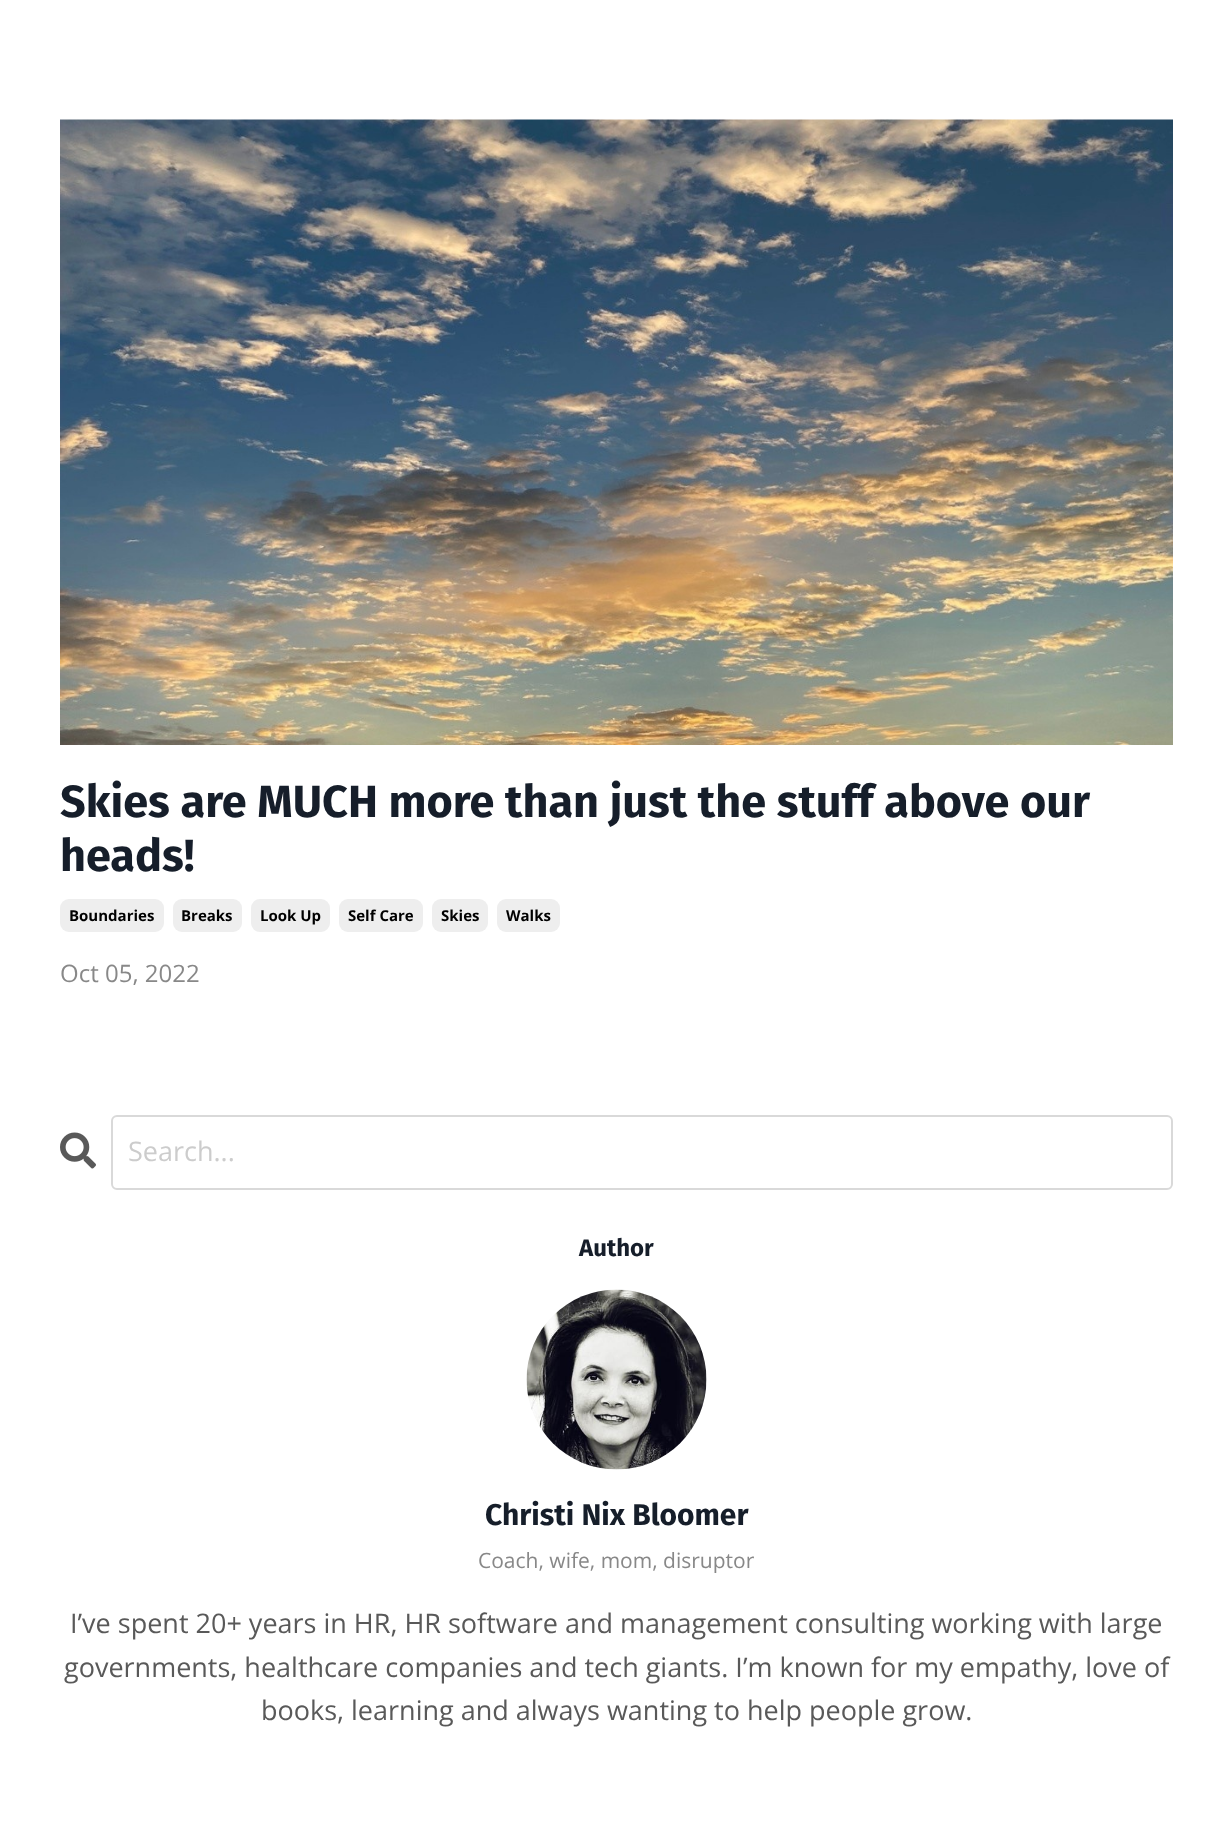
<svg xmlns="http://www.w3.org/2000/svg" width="1232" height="1829">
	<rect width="100%" height="100%" fill="#FFFFFF" />
	<image x="60" y="119" width="1113" height="626" href="assets/img1.png" />
	<g font-family="Fira Sans" font-size="45" font-weight="700" fill="#161E2A">
		<text x="60" y="817">Skies are MUCH more than just the stuff above our</text>
		<text x="60" y="871">heads!</text>
	</g>
	<rect x="60" y="899" width="104" height="33" rx="9" fill="#EEEEEE" />
	<text x="69" y="921" font-family="Open Sans" font-size="15" font-weight="700" fill="#000000">Boundaries</text>
	<rect x="173" y="899" width="69" height="33" rx="9" fill="#EEEEEE" />
	<text x="181" y="921" font-family="Open Sans" font-size="15" font-weight="700" fill="#000000">Breaks</text>
	<rect x="251" y="899" width="79" height="33" rx="9" fill="#EEEEEE" />
	<text x="260" y="921" font-family="Open Sans" font-size="15" font-weight="700" fill="#000000">Look Up</text>
	<rect x="339" y="899" width="84" height="33" rx="9" fill="#EEEEEE" />
	<text x="348" y="921" font-family="Open Sans" font-size="15" font-weight="700" fill="#000000">Self Care</text>
	<rect x="432" y="899" width="56" height="33" rx="9" fill="#EEEEEE" />
	<text x="441" y="921" font-family="Open Sans" font-size="15" font-weight="700" fill="#000000">Skies</text>
	<rect x="497" y="899" width="63" height="33" rx="9" fill="#EEEEEE" />
	<text x="506" y="921" font-family="Open Sans" font-size="15" font-weight="700" fill="#000000">Walks</text>
	<text x="60" y="982" font-family="Open Sans" font-size="24" fill="#888888">Oct 05, 2022</text>
	<image x="60" y="1132" width="36" height="37" href="assets/img2.png" />
	<rect x="112" y="1116" width="1060" height="73" rx="5" fill="none" stroke="#D9D9D9" stroke-width="2" />
	<text x="128" y="1161" font-family="Open Sans" font-size="27" fill="#CCCCCC">Search...</text>
	<text x="579" y="1256" font-family="Fira Sans" font-size="24" font-weight="700" fill="#161E2A">Author</text>
	<image x="526" y="1289" width="181" height="181" href="assets/img3.png" />
	<text x="485" y="1525" font-family="Fira Sans" font-size="30" font-weight="700" fill="#161E2A">Christi Nix Bloomer</text>
	<text x="478" y="1568" font-family="Open Sans" font-size="21" fill="#888888">Coach, wife, mom, disruptor</text>
	<g font-family="Open Sans" font-size="27" fill="#595959">
		<text x="70" y="1633">I’ve spent 20+ years in HR, HR software and management consulting working with large</text>
		<text x="64" y="1677">governments, healthcare companies and tech giants. I’m known for my empathy, love of</text>
		<text x="261" y="1720">books, learning and always wanting to help people grow.</text>
	</g>
</svg>
